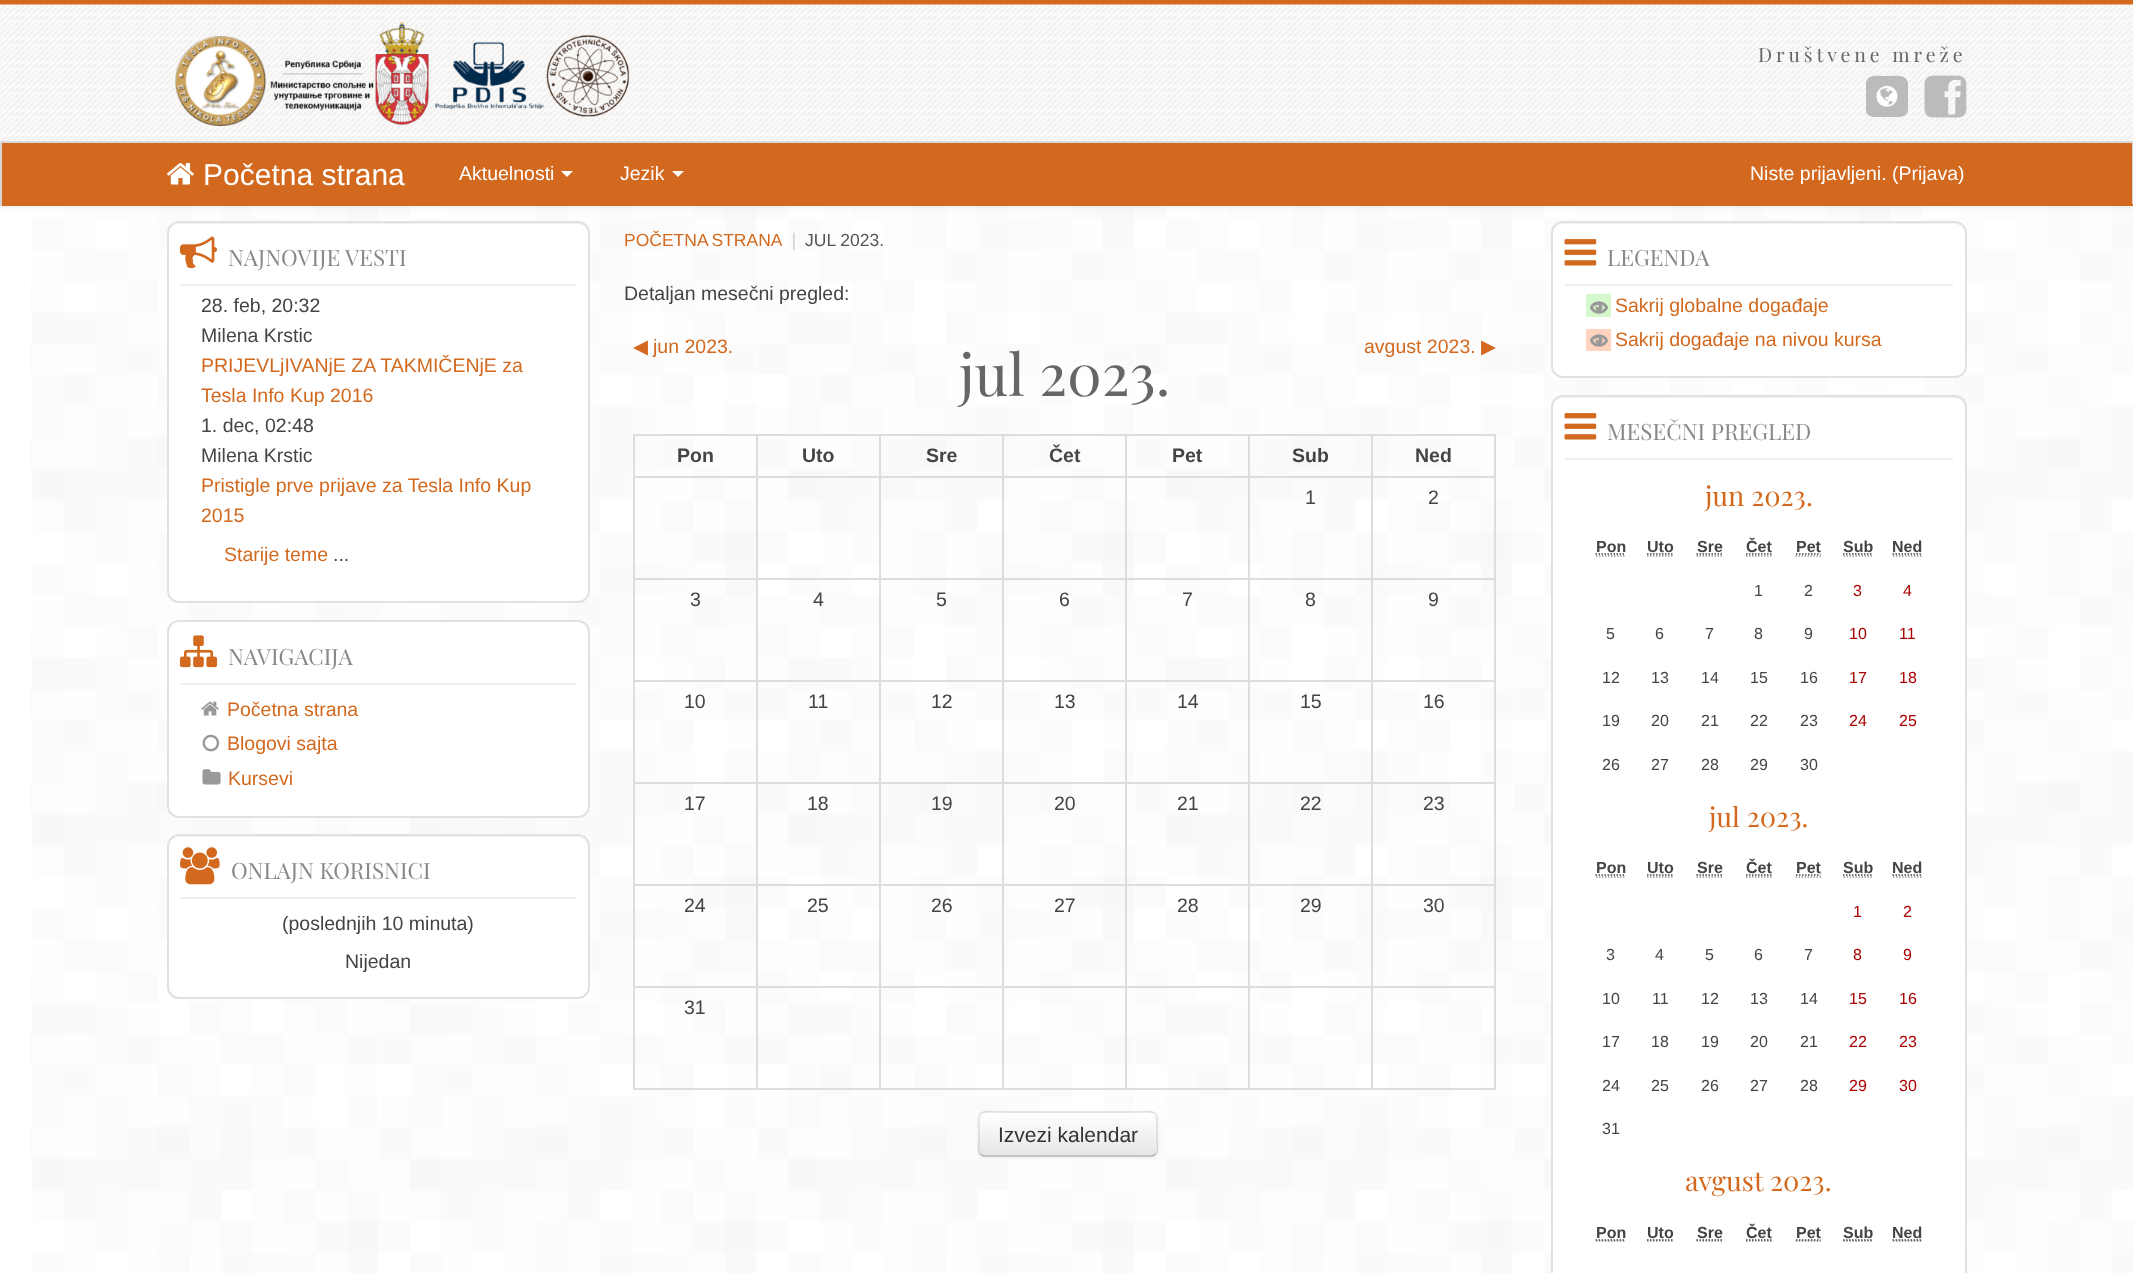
<svg xmlns="http://www.w3.org/2000/svg" width="2133" height="1273">
	<defs>
		<clipPath id="clip1"><rect x="978" y="1112" width="180" height="45" rx="6" /></clipPath>
		<linearGradient id="g1" gradientUnits="userSpaceOnUse" x1="1068" y1="1113" x2="1068" y2="1155"><stop offset="0" stop-color="#FFFFFF" /><stop offset="1" stop-color="#E6E6E6" /></linearGradient>
	</defs>
	<rect width="100%" height="100%" fill="#FFFFFF" />
	<image x="31" y="206" width="2102" height="1067" href="assets/img1.png" />
	<rect x="0" y="0" width="2133" height="5" fill="#D2691E" />
	<image x="0" y="4" width="2133" height="137" href="assets/img2.png" />
	<rect x="0" y="141" width="2133" height="2" fill="#DDDDDD" />
	<image x="175" y="22" width="455" height="104" href="assets/img3.png" />
	<text x="1758" y="62" font-family="Playfair Display" font-size="19.5" letter-spacing="3.9" fill="#666666">Društvene mreže</text>
	<path d="M1908 84V111C1906 117 1901 117 1896 117H1878C1873 117 1867 117 1866 111V84C1866 73 1880 76 1887 76C1893 76 1908 73 1908 84Z" fill="#BBBBBB" />
	<image x="1876" y="85" width="22" height="22" href="assets/img4.png" />
	<image x="1924" y="75" width="43" height="43" href="assets/img5.png" />
	<rect x="0" y="144" width="2133" height="63" fill="#000000" fill-opacity="0.07" filter="blur(3px)" />
	<rect x="2" y="143" width="2130" height="61" fill="#D2691E" />
	<rect x="2132" y="143" width="1" height="63" fill="#D4D4D4" />
	<rect x="0" y="204" width="2133" height="2" fill="#D2691E" />
	<rect x="0" y="143" width="2" height="63" fill="#D4D4D4" />
	<image x="167" y="163" width="27" height="22" href="assets/img6.png" />
	<text x="203" y="185" font-family="Liberation Sans" font-size="30" fill="#FFFFFF">Početna strana</text>
	<text x="459" y="180" font-family="Liberation Sans" font-size="19.5" fill="#FFFFFF">Aktuelnosti</text>
	<path d="M561 171H573L567 177Z" fill="#FFFFFF" />
	<text x="620" y="180" font-family="Liberation Sans" font-size="19.5" fill="#FFFFFF">Jezik</text>
	<path d="M672 171H684L678 177Z" fill="#FFFFFF" />
	<text x="1750" y="180" font-family="Liberation Sans" font-size="19.5" fill="#FFFFFF">Niste prijavljeni. (Prijava)</text>
	<rect x="167" y="221" width="423" height="382" rx="12" fill="#FFFFFF" />
	<path d="M178 224H578C583 224 588 228 588 234V233C588 227 583 222 577 222H179C173 222 168 227 168 233V234C168 228 173 224 178 224Z" fill="#F2F2F2" />
	<rect x="168" y="222" width="421" height="380" rx="11" fill="none" stroke="#E1E1E1" stroke-width="2" />
	<rect x="180" y="284" width="396" height="2" fill="#EEEEEE" />
	<image x="180" y="236" width="37" height="33" href="assets/img7.png" />
	<text x="228" y="266" font-family="Playfair Display" font-size="22.5" fill="#888888">NAJNOVIJE VESTI</text>
	<g font-family="Liberation Sans" font-size="19.5" fill="#444444">
		<text x="201" y="312">28. feb, 20:32</text>
		<text x="201" y="342">Milena Krstic</text>
	</g>
	<g font-family="Liberation Sans" font-size="19.5" fill="#D2691E">
		<text x="201" y="372">PRIJEVLjIVANjE ZA TAKMIČENjE za</text>
		<text x="201" y="402">Tesla Info Kup 2016</text>
	</g>
	<g font-family="Liberation Sans" font-size="19.5" fill="#444444">
		<text x="201" y="432">1. dec, 02:48</text>
		<text x="201" y="462">Milena Krstic</text>
	</g>
	<g font-family="Liberation Sans" font-size="19.5" fill="#D2691E">
		<text x="201" y="492">Pristigle prve prijave za Tesla Info Kup</text>
		<text x="201" y="522">2015</text>
		<text x="224" y="561">Starije teme</text>
	</g>
	<text x="333" y="561" font-family="Liberation Sans" font-size="19.5" fill="#444444">...</text>
	<rect x="167" y="620" width="423" height="198" rx="12" fill="#FFFFFF" />
	<path d="M178 622H578C583 622 588 627 588 633V632C588 626 583 621 577 621H179C173 621 168 626 168 632V633C168 627 173 622 178 622Z" fill="#F2F2F2" />
	<rect x="168" y="621" width="421" height="196" rx="11" fill="none" stroke="#E1E1E1" stroke-width="2" />
	<rect x="180" y="683" width="396" height="2" fill="#EEEEEE" />
	<image x="180" y="635" width="37" height="33" href="assets/img8.png" />
	<text x="228" y="665" font-family="Playfair Display" font-size="22.5" fill="#888888">NAVIGACIJA</text>
	<image x="201" y="701" width="18" height="15" href="assets/img9.png" />
	<text x="227" y="716" font-family="Liberation Sans" font-size="19.5" fill="#D2691E">Početna strana</text>
	<image x="202" y="734" width="18" height="18" href="assets/img10.png" />
	<text x="227" y="750" font-family="Liberation Sans" font-size="19.5" fill="#D2691E">Blogovi sajta</text>
	<image x="202" y="769" width="19" height="16" href="assets/img11.png" />
	<text x="228" y="785" font-family="Liberation Sans" font-size="19.5" fill="#D2691E">Kursevi</text>
	<rect x="167" y="834" width="423" height="165" rx="12" fill="#FFFFFF" />
	<path d="M178 837H578C583 837 588 842 588 848V847C588 841 583 836 577 836H179C173 836 168 841 168 847V848C168 842 173 837 178 837Z" fill="#F2F2F2" />
	<rect x="168" y="835" width="421" height="163" rx="11" fill="none" stroke="#E1E1E1" stroke-width="2" />
	<rect x="180" y="897" width="396" height="2" fill="#EEEEEE" />
	<image x="180" y="847" width="40" height="38" href="assets/img12.png" />
	<text x="231" y="879" font-family="Playfair Display" font-size="22.5" fill="#888888">ONLAJN KORISNICI</text>
	<g font-family="Liberation Sans" font-size="19.5" fill="#444444">
		<text x="282" y="930">(poslednjih 10 minuta)</text>
		<text x="345" y="968">Nijedan</text>
	</g>
	<text x="624" y="246" word-spacing="-1" font-family="Liberation Sans" font-size="17.5" fill="#D2691E">POČETNA STRANA</text>
	<text x="792" y="246" font-family="Liberation Serif" font-size="19" fill="#BBBBBB">|</text>
	<text x="805" y="246" font-family="Liberation Sans" font-size="17.5" fill="#555555">JUL 2023.</text>
	<text x="624" y="300" font-family="Liberation Sans" font-size="19.5" fill="#444444">Detaljan mesečni pregled:</text>
	<text x="633" y="353" font-family="DejaVu Sans" font-size="19.5" fill="#D2691E">◀</text>
	<text x="653" y="353" font-family="Liberation Sans" font-size="19.5" fill="#D2691E">jun 2023.</text>
	<text x="959" y="396" font-family="Playfair Display" font-size="58" fill="#666666">jul 2023.</text>
	<text x="1364" y="353" font-family="Liberation Sans" font-size="19.5" fill="#D2691E">avgust 2023.</text>
	<text x="1481" y="353" font-family="DejaVu Sans" font-size="19.5" fill="#D2691E">▶</text>
	<rect x="1371" y="434" width="125" height="2" fill="#DDDDDD" />
	<rect x="1371" y="476" width="125" height="2" fill="#DDDDDD" />
	<rect x="1371" y="578" width="125" height="2" fill="#DDDDDD" />
	<rect x="1371" y="680" width="125" height="2" fill="#DDDDDD" />
	<rect x="1371" y="782" width="125" height="2" fill="#DDDDDD" />
	<rect x="1371" y="884" width="125" height="2" fill="#DDDDDD" />
	<rect x="1371" y="986" width="125" height="2" fill="#DDDDDD" />
	<rect x="1494" y="986" width="2" height="103" fill="#DDDDDD" />
	<rect x="1371" y="1088" width="125" height="2" fill="#DDDDDD" />
	<rect x="1371" y="986" width="2" height="103" fill="#DDDDDD" />
	<rect x="1248" y="986" width="125" height="2" fill="#DDDDDD" />
	<rect x="1371" y="884" width="2" height="103" fill="#DDDDDD" />
	<rect x="1248" y="884" width="125" height="2" fill="#DDDDDD" />
	<rect x="1371" y="782" width="2" height="103" fill="#DDDDDD" />
	<rect x="1248" y="782" width="125" height="2" fill="#DDDDDD" />
	<rect x="1371" y="680" width="2" height="103" fill="#DDDDDD" />
	<rect x="1248" y="680" width="125" height="2" fill="#DDDDDD" />
	<rect x="1371" y="578" width="2" height="103" fill="#DDDDDD" />
	<rect x="1248" y="578" width="125" height="2" fill="#DDDDDD" />
	<rect x="1371" y="476" width="2" height="103" fill="#DDDDDD" />
	<rect x="1248" y="476" width="125" height="2" fill="#DDDDDD" />
	<rect x="1371" y="434" width="2" height="43" fill="#DDDDDD" />
	<rect x="1248" y="434" width="125" height="2" fill="#DDDDDD" />
	<rect x="1248" y="1088" width="125" height="2" fill="#DDDDDD" />
	<rect x="1248" y="986" width="2" height="103" fill="#DDDDDD" />
	<rect x="1125" y="986" width="125" height="2" fill="#DDDDDD" />
	<rect x="1248" y="884" width="2" height="103" fill="#DDDDDD" />
	<rect x="1125" y="884" width="125" height="2" fill="#DDDDDD" />
	<rect x="1248" y="782" width="2" height="103" fill="#DDDDDD" />
	<rect x="1125" y="782" width="125" height="2" fill="#DDDDDD" />
	<rect x="1248" y="680" width="2" height="103" fill="#DDDDDD" />
	<rect x="1125" y="680" width="125" height="2" fill="#DDDDDD" />
	<rect x="1248" y="578" width="2" height="103" fill="#DDDDDD" />
	<rect x="1125" y="578" width="125" height="2" fill="#DDDDDD" />
	<rect x="1248" y="476" width="2" height="103" fill="#DDDDDD" />
	<rect x="1125" y="476" width="125" height="2" fill="#DDDDDD" />
	<rect x="1248" y="434" width="2" height="43" fill="#DDDDDD" />
	<rect x="1125" y="434" width="125" height="2" fill="#DDDDDD" />
	<rect x="1125" y="1088" width="125" height="2" fill="#DDDDDD" />
	<rect x="1125" y="986" width="2" height="103" fill="#DDDDDD" />
	<rect x="1002" y="986" width="125" height="2" fill="#DDDDDD" />
	<rect x="1125" y="884" width="2" height="103" fill="#DDDDDD" />
	<rect x="1002" y="884" width="125" height="2" fill="#DDDDDD" />
	<rect x="1125" y="782" width="2" height="103" fill="#DDDDDD" />
	<rect x="1002" y="782" width="125" height="2" fill="#DDDDDD" />
	<rect x="1125" y="680" width="2" height="103" fill="#DDDDDD" />
	<rect x="1002" y="680" width="125" height="2" fill="#DDDDDD" />
	<rect x="1125" y="578" width="2" height="103" fill="#DDDDDD" />
	<rect x="1002" y="578" width="125" height="2" fill="#DDDDDD" />
	<rect x="1125" y="476" width="2" height="103" fill="#DDDDDD" />
	<rect x="1002" y="476" width="125" height="2" fill="#DDDDDD" />
	<rect x="1125" y="434" width="2" height="43" fill="#DDDDDD" />
	<rect x="1002" y="434" width="125" height="2" fill="#DDDDDD" />
	<rect x="1002" y="1088" width="125" height="2" fill="#DDDDDD" />
	<rect x="1002" y="986" width="2" height="103" fill="#DDDDDD" />
	<rect x="879" y="986" width="125" height="2" fill="#DDDDDD" />
	<rect x="1002" y="884" width="2" height="103" fill="#DDDDDD" />
	<rect x="879" y="884" width="125" height="2" fill="#DDDDDD" />
	<rect x="1002" y="782" width="2" height="103" fill="#DDDDDD" />
	<rect x="879" y="782" width="125" height="2" fill="#DDDDDD" />
	<rect x="1002" y="680" width="2" height="103" fill="#DDDDDD" />
	<rect x="879" y="680" width="125" height="2" fill="#DDDDDD" />
	<rect x="1002" y="578" width="2" height="103" fill="#DDDDDD" />
	<rect x="879" y="578" width="125" height="2" fill="#DDDDDD" />
	<rect x="1002" y="476" width="2" height="103" fill="#DDDDDD" />
	<rect x="879" y="476" width="125" height="2" fill="#DDDDDD" />
	<rect x="1002" y="434" width="2" height="43" fill="#DDDDDD" />
	<rect x="879" y="434" width="125" height="2" fill="#DDDDDD" />
	<rect x="879" y="1088" width="125" height="2" fill="#DDDDDD" />
	<rect x="879" y="986" width="2" height="103" fill="#DDDDDD" />
	<rect x="756" y="986" width="125" height="2" fill="#DDDDDD" />
	<rect x="879" y="884" width="2" height="103" fill="#DDDDDD" />
	<rect x="756" y="884" width="125" height="2" fill="#DDDDDD" />
	<rect x="879" y="782" width="2" height="103" fill="#DDDDDD" />
	<rect x="756" y="782" width="125" height="2" fill="#DDDDDD" />
	<rect x="879" y="680" width="2" height="103" fill="#DDDDDD" />
	<rect x="756" y="680" width="125" height="2" fill="#DDDDDD" />
	<rect x="879" y="578" width="2" height="103" fill="#DDDDDD" />
	<rect x="756" y="578" width="125" height="2" fill="#DDDDDD" />
	<rect x="879" y="476" width="2" height="103" fill="#DDDDDD" />
	<rect x="756" y="476" width="125" height="2" fill="#DDDDDD" />
	<rect x="879" y="434" width="2" height="43" fill="#DDDDDD" />
	<rect x="756" y="434" width="125" height="2" fill="#DDDDDD" />
	<rect x="756" y="1088" width="125" height="2" fill="#DDDDDD" />
	<rect x="756" y="986" width="2" height="103" fill="#DDDDDD" />
	<rect x="633" y="986" width="125" height="2" fill="#DDDDDD" />
	<rect x="756" y="884" width="2" height="103" fill="#DDDDDD" />
	<rect x="633" y="884" width="125" height="2" fill="#DDDDDD" />
	<rect x="756" y="782" width="2" height="103" fill="#DDDDDD" />
	<rect x="633" y="782" width="125" height="2" fill="#DDDDDD" />
	<rect x="756" y="680" width="2" height="103" fill="#DDDDDD" />
	<rect x="633" y="680" width="125" height="2" fill="#DDDDDD" />
	<rect x="756" y="578" width="2" height="103" fill="#DDDDDD" />
	<rect x="633" y="578" width="125" height="2" fill="#DDDDDD" />
	<rect x="756" y="476" width="2" height="103" fill="#DDDDDD" />
	<rect x="633" y="476" width="125" height="2" fill="#DDDDDD" />
	<rect x="756" y="434" width="2" height="43" fill="#DDDDDD" />
	<rect x="633" y="434" width="125" height="2" fill="#DDDDDD" />
	<rect x="633" y="1088" width="125" height="2" fill="#DDDDDD" />
	<rect x="633" y="986" width="2" height="103" fill="#DDDDDD" />
	<rect x="633" y="884" width="2" height="103" fill="#DDDDDD" />
	<rect x="633" y="782" width="2" height="103" fill="#DDDDDD" />
	<rect x="633" y="680" width="2" height="103" fill="#DDDDDD" />
	<rect x="633" y="578" width="2" height="103" fill="#DDDDDD" />
	<rect x="633" y="476" width="2" height="103" fill="#DDDDDD" />
	<rect x="633" y="434" width="2" height="43" fill="#DDDDDD" />
	<g font-family="Liberation Sans" font-size="19.5" font-weight="700" fill="#444444">
		<text x="677" y="462">Pon</text>
		<text x="802" y="462">Uto</text>
		<text x="926" y="462">Sre</text>
		<text x="1049" y="462">Čet</text>
		<text x="1172" y="462">Pet</text>
		<text x="1292" y="462">Sub</text>
	</g>
	<rect x="1494" y="884" width="2" height="103" fill="#DDDDDD" />
	<rect x="1494" y="782" width="2" height="103" fill="#DDDDDD" />
	<rect x="1494" y="680" width="2" height="103" fill="#DDDDDD" />
	<rect x="1494" y="578" width="2" height="103" fill="#DDDDDD" />
	<rect x="1494" y="476" width="2" height="103" fill="#DDDDDD" />
	<rect x="1494" y="434" width="2" height="43" fill="#DDDDDD" />
	<text x="1415" y="462" font-family="Liberation Sans" font-size="19.5" font-weight="700" fill="#444444">Ned</text>
	<g font-family="Liberation Sans" font-size="19.5" fill="#444444">
		<text x="1305" y="504">1</text>
		<text x="1428" y="504">2</text>
		<text x="690" y="606">3</text>
		<text x="813" y="606">4</text>
		<text x="936" y="606">5</text>
		<text x="1059" y="606">6</text>
		<text x="1182" y="606">7</text>
		<text x="1305" y="606">8</text>
		<text x="1428" y="606">9</text>
		<text x="684" y="708">10</text>
		<text x="808" y="708">11</text>
		<text x="931" y="708">12</text>
		<text x="1054" y="708">13</text>
		<text x="1177" y="708">14</text>
		<text x="1300" y="708">15</text>
		<text x="1423" y="708">16</text>
		<text x="684" y="810">17</text>
		<text x="807" y="810">18</text>
		<text x="931" y="810">19</text>
		<text x="1054" y="810">20</text>
		<text x="1177" y="810">21</text>
		<text x="1300" y="810">22</text>
		<text x="1423" y="810">23</text>
		<text x="684" y="912">24</text>
		<text x="807" y="912">25</text>
		<text x="931" y="912">26</text>
		<text x="1054" y="912">27</text>
		<text x="1177" y="912">28</text>
		<text x="1300" y="912">29</text>
		<text x="1423" y="912">30</text>
		<text x="684" y="1014">31</text>
	</g>
	<rect x="978" y="1113" width="180" height="45" rx="6" fill="#000000" fill-opacity="0.05" filter="blur(1.5px)" />
	<rect x="978" y="1112" width="180" height="45" rx="6" fill="#F5F5F5" />
	<g clip-path="url(#clip1)">
		<rect x="978" y="1113" width="180" height="42" fill="url(#g1)" />
	</g>
	<path d="M984 1114H1152C1158 1114 1156 1128 1156 1130V1153C1157 1152 1157 1151 1157 1150V1118C1157 1115 1155 1113 1152 1113H985C982 1113 980 1115 980 1118V1119C980 1117 982 1114 984 1114Z" fill="#FFFFFF" fill-opacity="0.2" />
	<path d="M1155.5 1154C1154.5 1155 1153.5 1156 1152 1156H984C982.5 1156 981.5 1155 980.5 1154" fill="none" stroke="#B3B3B3" stroke-width="1.5" />
	<path d="M980.5 1154C977 1151 979 1143 979 1139.5C979 1105.5 974 1112 1012 1112H1124C1162 1112 1157 1105.5 1157 1139.5C1157 1143 1159 1151 1155.5 1154" fill="none" stroke="#000000" stroke-opacity="0.1" stroke-width="1.5" />
	<text x="998" y="1142" font-family="Liberation Sans" font-size="21" fill="#333333">Izvezi kalendar</text>
	<rect x="1551" y="221" width="416" height="157" rx="12" fill="#FFFFFF" />
	<path d="M1563 224H1954C1960 224 1965 228 1965 234V233C1965 227 1960 222 1954 222H1564C1560 222 1556 224 1554 228C1556 225 1560 224 1563 224Z" fill="#F2F2F2" />
	<rect x="1552" y="222" width="414" height="155" rx="11" fill="none" stroke="#E1E1E1" stroke-width="2" />
	<rect x="1565" y="284" width="388" height="2" fill="#EEEEEE" />
	<image x="1564" y="239" width="33" height="27" href="assets/img13.png" />
	<text x="1607" y="266" font-family="Playfair Display" font-size="22.5" fill="#888888">LEGENDA</text>
	<rect x="1586" y="294" width="25" height="23" fill="#D6F8CD" />
	<image x="1590" y="301" width="18" height="13" href="assets/img14.png" />
	<text x="1615" y="312" font-family="Liberation Sans" font-size="19.5" fill="#D2691E">Sakrij globalne događaje</text>
	<rect x="1586" y="329" width="25" height="22" fill="#FFD3BD" />
	<image x="1590" y="334" width="18" height="13" href="assets/img15.png" />
	<text x="1615" y="346" font-family="Liberation Sans" font-size="19.5" fill="#D2691E">Sakrij događaje na nivou kursa</text>
	<rect x="1551" y="395" width="416" height="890" rx="12" fill="#FFFFFF" />
	<path d="M1563 398H1954C1960 398 1965 402 1965 408V407C1965 401 1960 396 1954 396H1564C1560 396 1556 398 1554 402C1556 399 1560 398 1563 398Z" fill="#F2F2F2" />
	<rect x="1552" y="396" width="414" height="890" rx="11" fill="none" stroke="#E1E1E1" stroke-width="2" />
	<rect x="1565" y="458" width="388" height="2" fill="#EEEEEE" />
	<image x="1564" y="413" width="33" height="27" href="assets/img13.png" />
	<text x="1607" y="440" font-family="Playfair Display" font-size="22.5" fill="#888888">MESEČNI PREGLED</text>
	<text x="1705" y="506" font-family="Playfair Display" font-size="27.25" fill="#D2691E">jun 2023.</text>
	<text x="1596" y="552" font-family="Liberation Sans" font-size="16" font-weight="700" fill="#444444">Pon</text>
	<path d="M1596 556H1624.5" fill="none" stroke="#999999" stroke-width="1.5" stroke-dasharray="1.5 1.5" />
	<path d="M1595.5 554H1625" fill="none" stroke="#444444" stroke-width="1.5" stroke-dasharray="1.5 1.5" />
	<text x="1647" y="552" font-family="Liberation Sans" font-size="16" font-weight="700" fill="#444444">Uto</text>
	<path d="M1647 556H1672.5" fill="none" stroke="#999999" stroke-width="1.5" stroke-dasharray="1.5 1.5" />
	<path d="M1647 554H1673" fill="none" stroke="#444444" stroke-width="1.5" stroke-dasharray="1.5 1.5" />
	<text x="1697" y="552" font-family="Liberation Sans" font-size="16" font-weight="700" fill="#444444">Sre</text>
	<path d="M1696.5 556H1722" fill="none" stroke="#999999" stroke-width="1.5" stroke-dasharray="1.5 1.5" />
	<path d="M1696.5 554H1722" fill="none" stroke="#444444" stroke-width="1.5" stroke-dasharray="1.5 1.5" />
	<text x="1746" y="552" font-family="Liberation Sans" font-size="16" font-weight="700" fill="#444444">Čet</text>
	<path d="M1746 556H1771.5" fill="none" stroke="#999999" stroke-width="1.5" stroke-dasharray="1.5 1.5" />
	<path d="M1746 554H1771.5" fill="none" stroke="#444444" stroke-width="1.5" stroke-dasharray="1.5 1.5" />
	<text x="1796" y="552" font-family="Liberation Sans" font-size="16" font-weight="700" fill="#444444">Pet</text>
	<path d="M1795.5 556H1821" fill="none" stroke="#999999" stroke-width="1.5" stroke-dasharray="1.5 1.5" />
	<path d="M1796 554H1820.5" fill="none" stroke="#444444" stroke-width="1.5" stroke-dasharray="1.5 1.5" />
	<text x="1843" y="552" font-family="Liberation Sans" font-size="16" font-weight="700" fill="#444444">Sub</text>
	<path d="M1843.5 556H1872" fill="none" stroke="#999999" stroke-width="1.5" stroke-dasharray="1.5 1.5" />
	<path d="M1843 554H1872.5" fill="none" stroke="#444444" stroke-width="1.5" stroke-dasharray="1.5 1.5" />
	<text x="1892" y="552" font-family="Liberation Sans" font-size="16" font-weight="700" fill="#444444">Ned</text>
	<path d="M1893 556H1921.5" fill="none" stroke="#999999" stroke-width="1.5" stroke-dasharray="1.5 1.5" />
	<path d="M1892.5 554H1922" fill="none" stroke="#444444" stroke-width="1.5" stroke-dasharray="1.5 1.5" />
	<g font-family="Liberation Sans" font-size="16" fill="#444444">
		<text x="1754" y="596">1</text>
		<text x="1804" y="596">2</text>
	</g>
	<g font-family="Liberation Sans" font-size="16" fill="#AA0000">
		<text x="1853" y="596">3</text>
		<text x="1903" y="596">4</text>
	</g>
	<g font-family="Liberation Sans" font-size="16" fill="#444444">
		<text x="1606" y="639">5</text>
		<text x="1655" y="639">6</text>
		<text x="1705" y="639">7</text>
		<text x="1754" y="639">8</text>
		<text x="1804" y="639">9</text>
	</g>
	<g font-family="Liberation Sans" font-size="16" fill="#AA0000">
		<text x="1849" y="639">10</text>
		<text x="1899" y="639">11</text>
	</g>
	<g font-family="Liberation Sans" font-size="16" fill="#444444">
		<text x="1602" y="683">12</text>
		<text x="1651" y="683">13</text>
		<text x="1701" y="683">14</text>
		<text x="1750" y="683">15</text>
		<text x="1800" y="683">16</text>
	</g>
	<g font-family="Liberation Sans" font-size="16" fill="#AA0000">
		<text x="1849" y="683">17</text>
		<text x="1899" y="683">18</text>
	</g>
	<g font-family="Liberation Sans" font-size="16" fill="#444444">
		<text x="1602" y="726">19</text>
		<text x="1651" y="726">20</text>
		<text x="1701" y="726">21</text>
		<text x="1750" y="726">22</text>
		<text x="1800" y="726">23</text>
	</g>
	<g font-family="Liberation Sans" font-size="16" fill="#AA0000">
		<text x="1849" y="726">24</text>
		<text x="1899" y="726">25</text>
	</g>
	<g font-family="Liberation Sans" font-size="16" fill="#444444">
		<text x="1602" y="770">26</text>
		<text x="1651" y="770">27</text>
		<text x="1701" y="770">28</text>
		<text x="1750" y="770">29</text>
		<text x="1800" y="770">30</text>
	</g>
	<text x="1709" y="827" font-family="Playfair Display" font-size="27.25" fill="#D2691E">jul 2023.</text>
	<text x="1596" y="873" font-family="Liberation Sans" font-size="16" font-weight="700" fill="#444444">Pon</text>
	<path d="M1596 877H1624.5" fill="none" stroke="#999999" stroke-width="1.5" stroke-dasharray="1.5 1.5" />
	<path d="M1595.5 875H1625" fill="none" stroke="#444444" stroke-width="1.5" stroke-dasharray="1.5 1.5" />
	<text x="1647" y="873" font-family="Liberation Sans" font-size="16" font-weight="700" fill="#444444">Uto</text>
	<path d="M1647 877H1672.5" fill="none" stroke="#999999" stroke-width="1.5" stroke-dasharray="1.5 1.5" />
	<path d="M1647 875H1673" fill="none" stroke="#444444" stroke-width="1.5" stroke-dasharray="1.5 1.5" />
	<text x="1697" y="873" font-family="Liberation Sans" font-size="16" font-weight="700" fill="#444444">Sre</text>
	<path d="M1696.5 877H1722" fill="none" stroke="#999999" stroke-width="1.5" stroke-dasharray="1.5 1.5" />
	<path d="M1696.5 875H1722" fill="none" stroke="#444444" stroke-width="1.5" stroke-dasharray="1.5 1.5" />
	<text x="1746" y="873" font-family="Liberation Sans" font-size="16" font-weight="700" fill="#444444">Čet</text>
	<path d="M1746 877H1771.5" fill="none" stroke="#999999" stroke-width="1.5" stroke-dasharray="1.5 1.5" />
	<path d="M1746 875H1771.5" fill="none" stroke="#444444" stroke-width="1.5" stroke-dasharray="1.5 1.5" />
	<text x="1796" y="873" font-family="Liberation Sans" font-size="16" font-weight="700" fill="#444444">Pet</text>
	<path d="M1795.5 877H1821" fill="none" stroke="#999999" stroke-width="1.5" stroke-dasharray="1.5 1.5" />
	<path d="M1796 875H1820.5" fill="none" stroke="#444444" stroke-width="1.5" stroke-dasharray="1.5 1.5" />
	<text x="1843" y="873" font-family="Liberation Sans" font-size="16" font-weight="700" fill="#444444">Sub</text>
	<path d="M1843.5 877H1872" fill="none" stroke="#999999" stroke-width="1.5" stroke-dasharray="1.5 1.5" />
	<path d="M1843 875H1872.5" fill="none" stroke="#444444" stroke-width="1.5" stroke-dasharray="1.5 1.5" />
	<text x="1892" y="873" font-family="Liberation Sans" font-size="16" font-weight="700" fill="#444444">Ned</text>
	<path d="M1893 877H1921.5" fill="none" stroke="#999999" stroke-width="1.5" stroke-dasharray="1.5 1.5" />
	<path d="M1892.5 875H1922" fill="none" stroke="#444444" stroke-width="1.5" stroke-dasharray="1.5 1.5" />
	<g font-family="Liberation Sans" font-size="16" fill="#AA0000">
		<text x="1853" y="917">1</text>
		<text x="1903" y="917">2</text>
	</g>
	<g font-family="Liberation Sans" font-size="16" fill="#444444">
		<text x="1606" y="960">3</text>
		<text x="1655" y="960">4</text>
		<text x="1705" y="960">5</text>
		<text x="1754" y="960">6</text>
		<text x="1804" y="960">7</text>
	</g>
	<g font-family="Liberation Sans" font-size="16" fill="#AA0000">
		<text x="1853" y="960">8</text>
		<text x="1903" y="960">9</text>
	</g>
	<g font-family="Liberation Sans" font-size="16" fill="#444444">
		<text x="1602" y="1004">10</text>
		<text x="1652" y="1004">11</text>
		<text x="1701" y="1004">12</text>
		<text x="1750" y="1004">13</text>
		<text x="1800" y="1004">14</text>
	</g>
	<g font-family="Liberation Sans" font-size="16" fill="#AA0000">
		<text x="1849" y="1004">15</text>
		<text x="1899" y="1004">16</text>
	</g>
	<g font-family="Liberation Sans" font-size="16" fill="#444444">
		<text x="1602" y="1047">17</text>
		<text x="1651" y="1047">18</text>
		<text x="1701" y="1047">19</text>
		<text x="1750" y="1047">20</text>
		<text x="1800" y="1047">21</text>
	</g>
	<g font-family="Liberation Sans" font-size="16" fill="#AA0000">
		<text x="1849" y="1047">22</text>
		<text x="1899" y="1047">23</text>
	</g>
	<g font-family="Liberation Sans" font-size="16" fill="#444444">
		<text x="1602" y="1091">24</text>
		<text x="1651" y="1091">25</text>
		<text x="1701" y="1091">26</text>
		<text x="1750" y="1091">27</text>
		<text x="1800" y="1091">28</text>
	</g>
	<g font-family="Liberation Sans" font-size="16" fill="#AA0000">
		<text x="1849" y="1091">29</text>
		<text x="1899" y="1091">30</text>
	</g>
	<text x="1602" y="1134" font-family="Liberation Sans" font-size="16" fill="#444444">31</text>
	<text x="1685" y="1191" font-family="Playfair Display" font-size="27.25" fill="#D2691E">avgust 2023.</text>
	<text x="1596" y="1238" font-family="Liberation Sans" font-size="16" font-weight="700" fill="#444444">Pon</text>
	<path d="M1596 1241H1624.5" fill="none" stroke="#999999" stroke-width="1.5" stroke-dasharray="1.5 1.5" />
	<path d="M1595.5 1240H1625" fill="none" stroke="#444444" stroke-width="1.5" stroke-dasharray="1.5 1.5" />
	<text x="1647" y="1238" font-family="Liberation Sans" font-size="16" font-weight="700" fill="#444444">Uto</text>
	<path d="M1647 1241H1672.5" fill="none" stroke="#999999" stroke-width="1.5" stroke-dasharray="1.5 1.5" />
	<path d="M1647 1240H1673" fill="none" stroke="#444444" stroke-width="1.5" stroke-dasharray="1.5 1.5" />
	<text x="1697" y="1238" font-family="Liberation Sans" font-size="16" font-weight="700" fill="#444444">Sre</text>
	<path d="M1696.5 1241H1722" fill="none" stroke="#999999" stroke-width="1.5" stroke-dasharray="1.5 1.5" />
	<path d="M1696.5 1240H1722" fill="none" stroke="#444444" stroke-width="1.5" stroke-dasharray="1.5 1.5" />
	<text x="1746" y="1238" font-family="Liberation Sans" font-size="16" font-weight="700" fill="#444444">Čet</text>
	<path d="M1746 1241H1771.5" fill="none" stroke="#999999" stroke-width="1.5" stroke-dasharray="1.5 1.5" />
	<path d="M1746 1240H1771.5" fill="none" stroke="#444444" stroke-width="1.5" stroke-dasharray="1.5 1.5" />
	<text x="1796" y="1238" font-family="Liberation Sans" font-size="16" font-weight="700" fill="#444444">Pet</text>
	<path d="M1795.5 1241H1821" fill="none" stroke="#999999" stroke-width="1.5" stroke-dasharray="1.5 1.5" />
	<path d="M1796 1240H1820.5" fill="none" stroke="#444444" stroke-width="1.5" stroke-dasharray="1.5 1.5" />
	<text x="1843" y="1238" font-family="Liberation Sans" font-size="16" font-weight="700" fill="#444444">Sub</text>
	<path d="M1843.5 1241H1872" fill="none" stroke="#999999" stroke-width="1.5" stroke-dasharray="1.5 1.5" />
	<path d="M1843 1240H1872.5" fill="none" stroke="#444444" stroke-width="1.5" stroke-dasharray="1.5 1.5" />
	<text x="1892" y="1238" font-family="Liberation Sans" font-size="16" font-weight="700" fill="#444444">Ned</text>
	<path d="M1893 1241H1921.5" fill="none" stroke="#999999" stroke-width="1.5" stroke-dasharray="1.5 1.5" />
	<path d="M1892.5 1240H1922" fill="none" stroke="#444444" stroke-width="1.5" stroke-dasharray="1.5 1.5" />
</svg>
